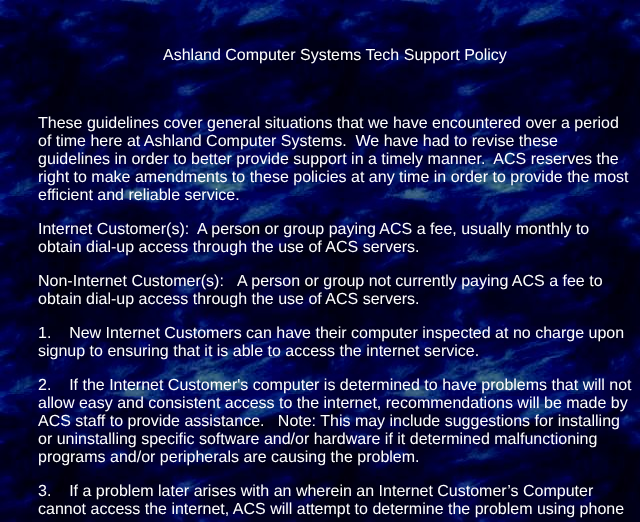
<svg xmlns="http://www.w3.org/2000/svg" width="640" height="522">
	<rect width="100%" height="100%" fill="#FFFFFF" />
	<image x="0" y="0" width="640" height="522" href="assets/img1.png" />
	<g font-family="Liberation Sans" font-size="16" fill="#FFFFFF">
		<text x="163" y="60">Ashland Computer Systems Tech Support Policy</text>
		<text x="38" y="128">These guidelines cover general situations that we have encountered over a period</text>
		<text x="38" y="146" xml:space="preserve">of time here at Ashland Computer Systems.  We have had to revise these</text>
		<text x="38" y="164" xml:space="preserve">guidelines in order to better provide support in a timely manner.  ACS reserves the</text>
		<text x="38" y="182">right to make amendments to these policies at any time in order to provide the most</text>
		<text x="38" y="200">efficient and reliable service.</text>
		<text x="38" y="234">Internet Customer(s):</text>
		<text x="197" y="234">A person or group paying ACS a fee, usually monthly to</text>
		<text x="38" y="252">obtain dial-up access through the use of ACS servers.</text>
		<text x="38" y="286">Non-Internet Customer(s):</text>
		<text x="237" y="286">A person or group not currently paying ACS a fee to</text>
		<text x="38" y="304">obtain dial-up access through the use of ACS servers.</text>
		<text x="38" y="338" xml:space="preserve">1.    New Internet Customers can have their computer inspected at no charge upon</text>
		<text x="38" y="356">signup to ensuring that it is able to access the internet service.</text>
		<text x="38" y="390" xml:space="preserve">2.    If the Internet Customer's computer is determined to have problems that will not</text>
		<text x="38" y="408">allow easy and consistent access to the internet, recommendations will be made by</text>
		<text x="38" y="426" xml:space="preserve">ACS staff to provide assistance.   Note: This may include suggestions for installing</text>
		<text x="38" y="444">or uninstalling specific software and/or hardware if it determined malfunctioning</text>
		<text x="38" y="462">programs and/or peripherals are causing the problem.</text>
		<text x="38" y="496" xml:space="preserve">3.    If a problem later arises with an wherein an Internet Customer’s Computer</text>
		<text x="38" y="514">cannot access the internet, ACS will attempt to determine the problem using phone</text>
	</g>
</svg>
